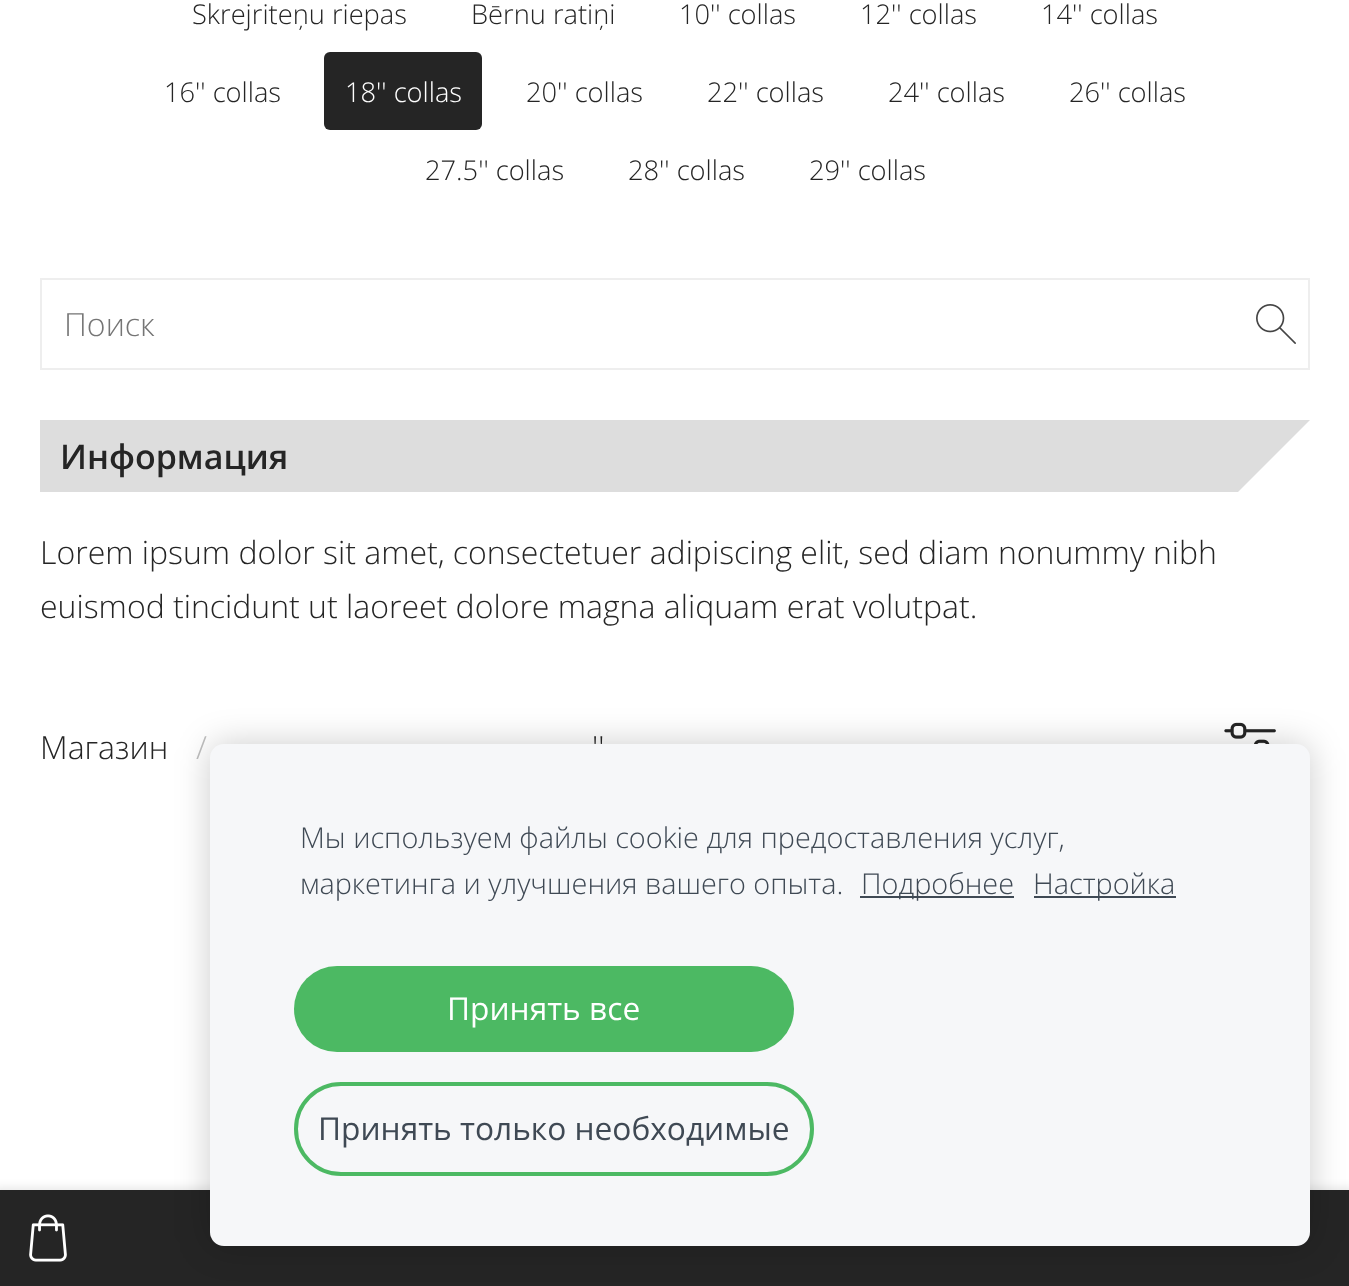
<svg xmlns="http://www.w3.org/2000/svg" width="1349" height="1286">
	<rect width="100%" height="100%" fill="#FFFFFF" />
	<g font-family="Open Sans" font-size="27.25" font-weight="300" fill="#252525">
		<text x="192" y="24">Skrejriteņu riepas</text>
		<text x="471" y="24">Bērnu ratiņi</text>
		<text x="679" y="24">10'' collas</text>
		<text x="860" y="24">12'' collas</text>
		<text x="1041" y="24">14'' collas</text>
		<text x="164" y="102">16'' collas</text>
	</g>
	<rect x="324" y="52" width="158" height="78" rx="6" fill="#252525" />
	<text x="345" y="102" font-family="Open Sans" font-size="27.25" font-weight="300" fill="#FFFFFF">18'' collas</text>
	<g font-family="Open Sans" font-size="27.25" font-weight="300" fill="#252525">
		<text x="526" y="102">20'' collas</text>
		<text x="707" y="102">22'' collas</text>
		<text x="888" y="102">24'' collas</text>
		<text x="1069" y="102">26'' collas</text>
		<text x="425" y="180">27.5'' collas</text>
		<text x="628" y="180">28'' collas</text>
		<text x="809" y="180">29'' collas</text>
	</g>
	<rect x="41" y="279" width="1268" height="90" fill="none" stroke="#EEEEEE" stroke-width="2" />
	<text x="64" y="336" font-family="Open Sans" font-size="32" font-weight="300" fill="#757575">Поиск</text>
	<image x="1256" y="304" width="40" height="40" href="assets/img1.png" />
	<rect x="40" y="420" width="1270" height="72" fill="#DDDDDD" />
	<text x="60" y="469" font-family="Open Sans" font-size="34" font-weight="600" fill="#252525">Информация</text>
	<path d="M1310 420V500H1230Z" fill="#FFFFFF" />
	<g font-family="Open Sans" font-size="32" font-weight="300" fill="#252525">
		<text x="40" y="564">Lorem ipsum dolor sit amet, consectetuer adipiscing elit, sed diam nonummy nibh</text>
		<text x="40" y="618">euismod tincidunt ut laoreet dolore magna aliquam erat volutpat.</text>
	</g>
	<image x="1224" y="722" width="52" height="22" href="assets/img2.png" />
	<text x="40" y="759" font-family="Open Sans" font-size="32" font-weight="300" fill="#252525">Магазин</text>
	<text x="196" y="759" font-family="Open Sans" font-size="32" font-weight="300" fill="#BEBEBE">/</text>
	<text x="592" y="759" font-family="Open Sans" font-size="32" font-weight="300" fill="#252525">''</text>
	<image x="203" y="1054" width="7" height="136" href="assets/img3.png" />
	<rect x="-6" y="1188" width="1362" height="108" fill="#000000" fill-opacity="0.1" filter="blur(5px)" />
	<rect x="0" y="1190" width="1349" height="96" fill="#252525" />
	<image x="29" y="1214" width="38" height="48" href="assets/img4.png" />
	<rect x="210" y="744" width="1100" height="502" rx="14" fill="#000000" fill-opacity="0.2" filter="blur(17px)" />
	<rect x="210" y="744" width="1100" height="502" rx="14" fill="#F6F7F9" />
	<g font-family="Open Sans" font-size="28.8" font-weight="300" fill="#3F4954">
		<text x="300" y="848">Мы используем файлы cookie для предоставления услуг,</text>
		<text x="300" y="894">маркетинга и улучшения вашего опыта.</text>
	</g>
	<rect x="860" y="896" width="154" height="2" fill="#3F4954" />
	<text x="861" y="894" font-family="Open Sans" font-size="28.8" font-weight="300" fill="#3F4954">Подробнее</text>
	<rect x="1034" y="896" width="142" height="2" fill="#3F4954" />
	<text x="1033" y="894" font-family="Open Sans" font-size="28.8" font-weight="300" fill="#3F4954">Настройка</text>
	<rect x="294" y="966" width="500" height="86" rx="43" fill="#4CB963" />
	<text x="447" y="1020" font-family="Open Sans" font-size="31.7" fill="#FFFFFF">Принять все</text>
	<rect x="296" y="1084" width="516" height="90" rx="45" fill="none" stroke="#4CB963" stroke-width="4" />
	<text x="318" y="1140" font-family="Open Sans" font-size="31.7" fill="#3F4954">Принять только необходимые</text>
</svg>
